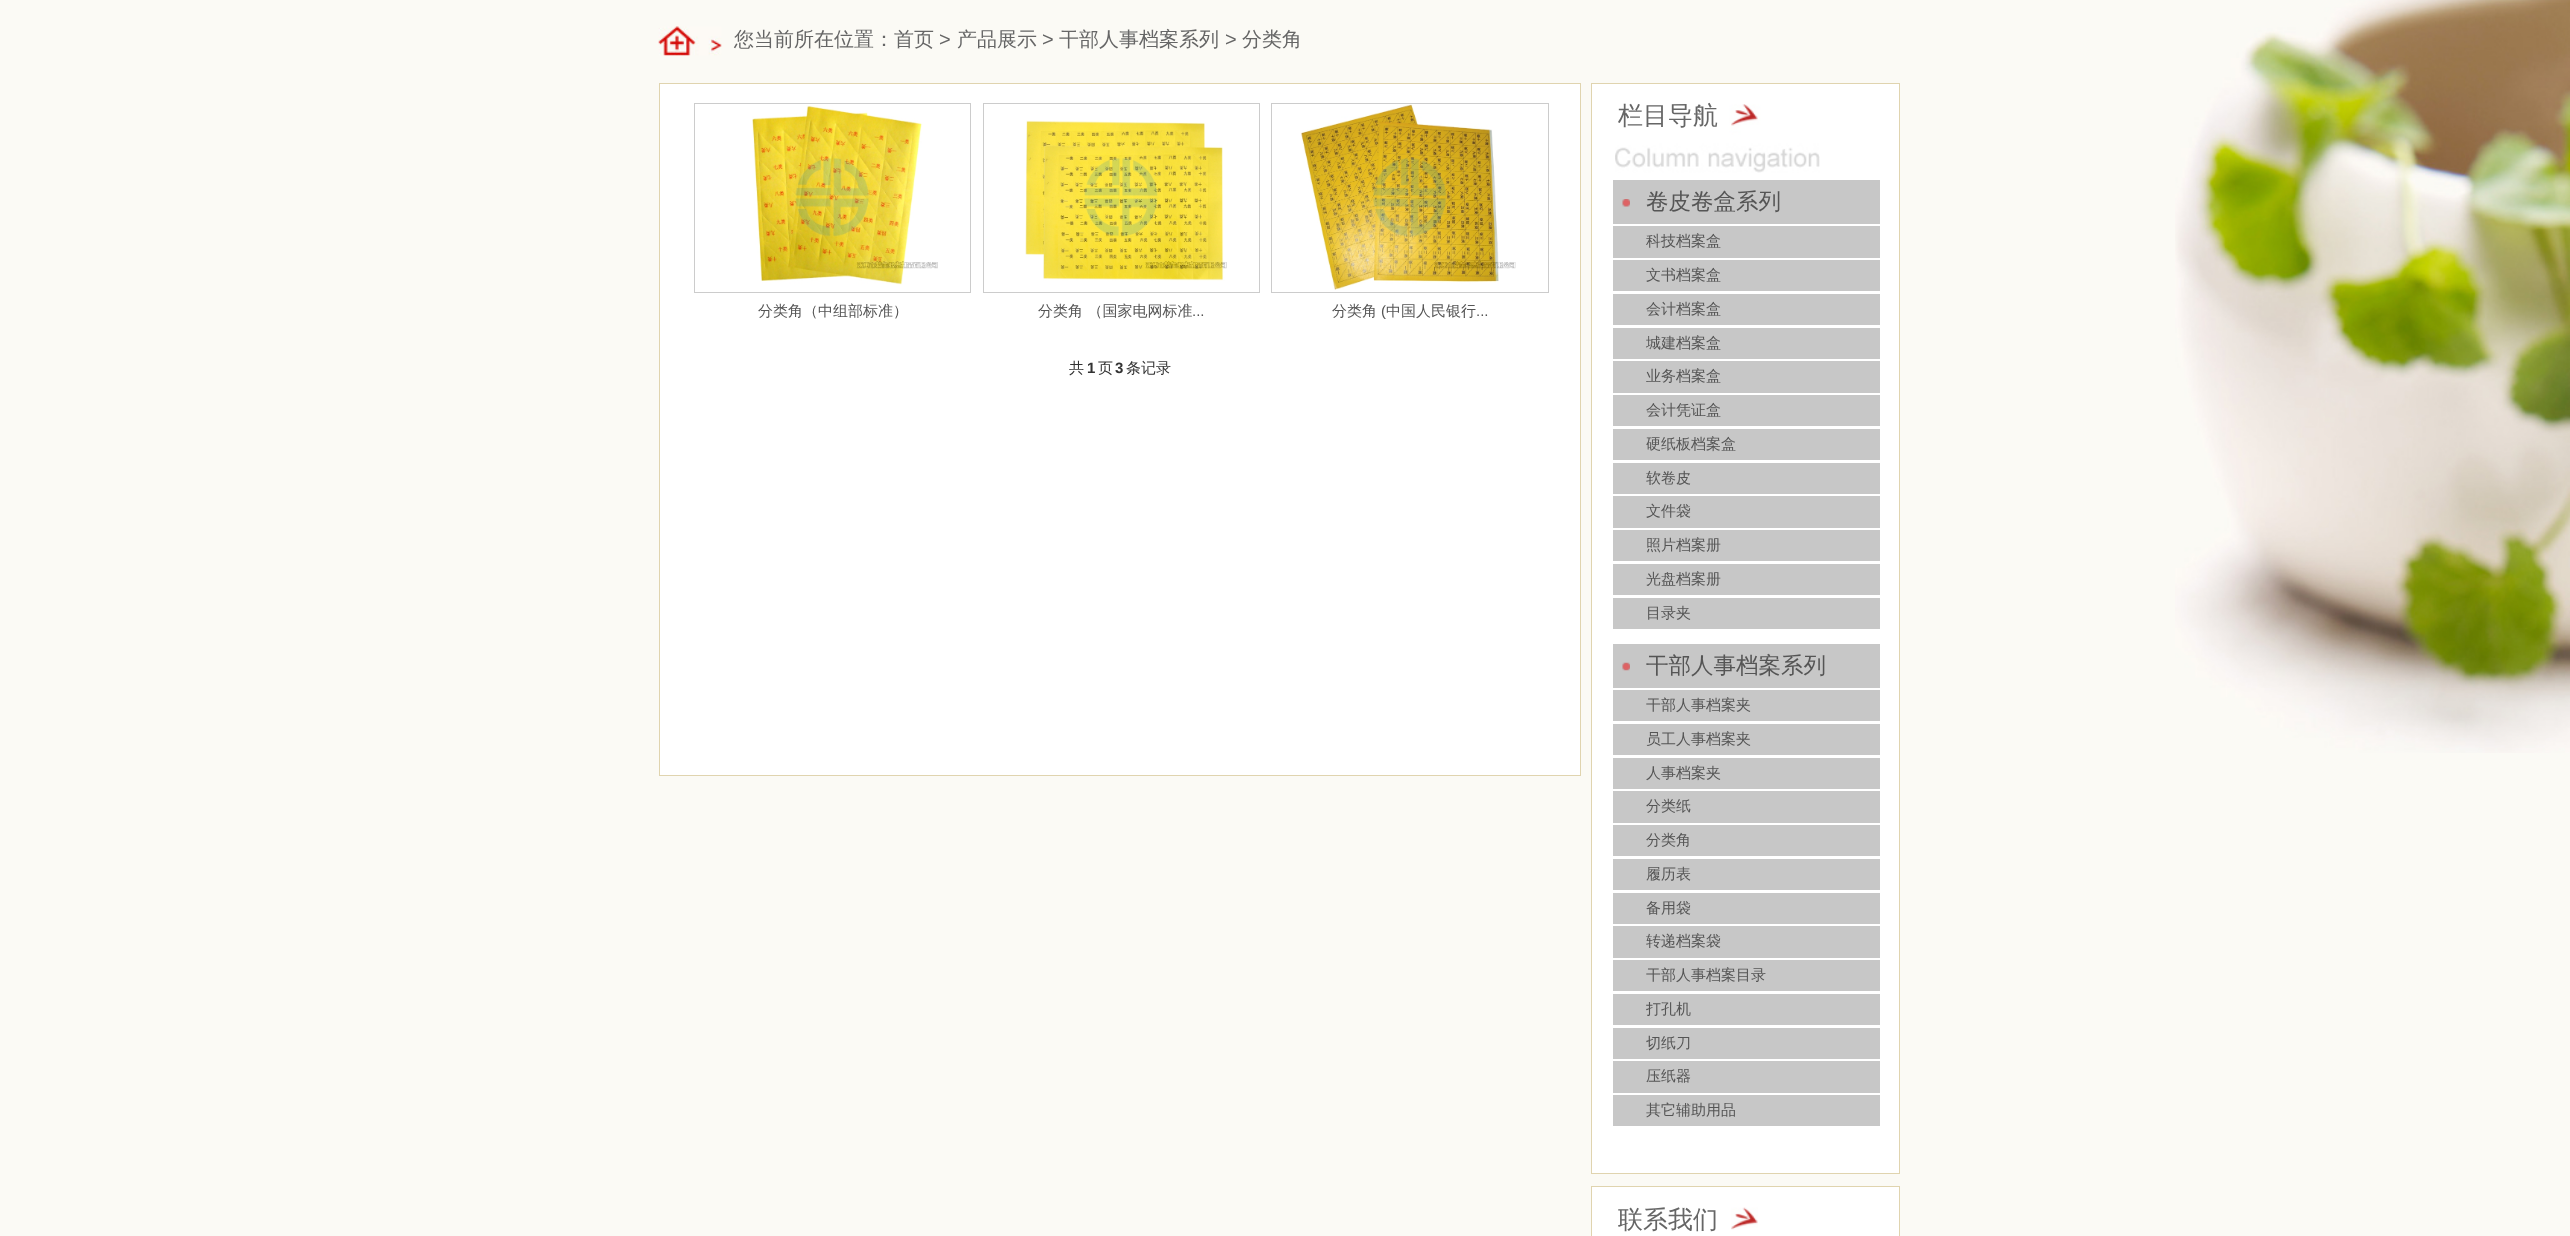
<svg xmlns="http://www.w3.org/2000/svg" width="2570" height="1236">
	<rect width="100%" height="100%" fill="#FBFAF5" />
	<image x="2175" y="0" width="395" height="753" href="assets/img1.png" />
	<image x="658" y="26" width="64" height="30" href="assets/img2.png" />
	<text x="734" y="46" font-family="WenQuanYi Zen Hei" font-size="20" font-weight="500" fill="#666666">您当前所在位置：首页</text>
	<text x="939" y="46" font-family="Liberation Sans" font-size="20" fill="#666666">&gt;</text>
	<text x="957" y="46" font-family="WenQuanYi Zen Hei" font-size="20" font-weight="500" fill="#666666">产品展示</text>
	<text x="1042" y="46" font-family="Liberation Sans" font-size="20" fill="#666666">&gt;</text>
	<text x="1059" y="46" font-family="WenQuanYi Zen Hei" font-size="20" font-weight="500" fill="#666666">干部人事档案系列</text>
	<text x="1225" y="46" font-family="Liberation Sans" font-size="20" fill="#666666">&gt;</text>
	<text x="1242" y="46" font-family="WenQuanYi Zen Hei" font-size="20" font-weight="500" fill="#666666">分类角</text>
	<rect x="659.5" y="83.5" width="921" height="692" fill="#FFFFFF" stroke="#E0D4AF" />
	<rect x="694.5" y="103.5" width="276" height="189" fill="none" stroke="#CCCCCC" />
	<image x="752" y="105" width="186" height="180" href="assets/img3.png" />
	<text x="758" y="316" font-family="WenQuanYi Zen Hei" font-size="15" font-weight="500" fill="#555555">分类角（中组部标准）</text>
	<rect x="983.5" y="103.5" width="276" height="189" fill="none" stroke="#CCCCCC" />
	<image x="1025" y="120" width="202" height="161" href="assets/img4.png" />
	<text x="1038" y="316" font-family="WenQuanYi Zen Hei" font-size="15" font-weight="500" fill="#555555">分类角 （国家电网标准</text>
	<text x="1192" y="316" font-family="Liberation Sans" font-size="15" fill="#555555">...</text>
	<rect x="1271.5" y="103.5" width="277" height="189" fill="none" stroke="#CCCCCC" />
	<image x="1301" y="104" width="215" height="186" href="assets/img5.png" />
	<text x="1332" y="316" font-family="WenQuanYi Zen Hei" font-size="15" font-weight="500" fill="#555555">分类角</text>
	<text x="1381" y="316" font-family="Liberation Sans" font-size="15" fill="#555555">(</text>
	<text x="1386" y="316" font-family="WenQuanYi Zen Hei" font-size="15" font-weight="500" fill="#555555">中国人民银行</text>
	<text x="1476" y="316" font-family="Liberation Sans" font-size="15" fill="#555555">...</text>
	<text x="1069" y="373" font-family="WenQuanYi Zen Hei" font-size="15" font-weight="500" fill="#333333">共</text>
	<text x="1087" y="373" font-family="Liberation Sans" font-size="15" font-weight="700" fill="#333333">1</text>
	<text x="1098" y="373" font-family="WenQuanYi Zen Hei" font-size="15" font-weight="500" fill="#333333">页</text>
	<text x="1115" y="373" font-family="Liberation Sans" font-size="15" font-weight="700" fill="#333333">3</text>
	<text x="1126" y="373" font-family="WenQuanYi Zen Hei" font-size="15" font-weight="500" fill="#333333">条记录</text>
	<rect x="1591.5" y="83.5" width="308" height="1090" fill="#FFFFFF" stroke="#E0D4AF" />
	<image x="1615" y="104" width="205" height="69" href="assets/img6.png" />
	<text x="1618" y="124" font-family="WenQuanYi Zen Hei" font-size="25" font-weight="500" fill="#666666">栏目导航</text>
	<rect x="1613" y="180" width="267" height="44" fill="#C7C7C7" />
	<image x="1622" y="199" width="8" height="8" href="assets/img7.png" />
	<text x="1646" y="209" font-family="WenQuanYi Zen Hei" font-size="22.5" font-weight="500" fill="#555555">卷皮卷盒系列</text>
	<rect x="1613" y="226" width="267" height="32" fill="#C7C7C7" />
	<text x="1646" y="246" font-family="WenQuanYi Zen Hei" font-size="15" font-weight="500" fill="#555555">科技档案盒</text>
	<rect x="1613" y="260" width="267" height="31" fill="#C7C7C7" />
	<text x="1646" y="280" font-family="WenQuanYi Zen Hei" font-size="15" font-weight="500" fill="#555555">文书档案盒</text>
	<rect x="1613" y="294" width="267" height="31" fill="#C7C7C7" />
	<text x="1646" y="314" font-family="WenQuanYi Zen Hei" font-size="15" font-weight="500" fill="#555555">会计档案盒</text>
	<rect x="1613" y="328" width="267" height="31" fill="#C7C7C7" />
	<text x="1646" y="348" font-family="WenQuanYi Zen Hei" font-size="15" font-weight="500" fill="#555555">城建档案盒</text>
	<rect x="1613" y="361" width="267" height="32" fill="#C7C7C7" />
	<text x="1646" y="381" font-family="WenQuanYi Zen Hei" font-size="15" font-weight="500" fill="#555555">业务档案盒</text>
	<rect x="1613" y="395" width="267" height="31" fill="#C7C7C7" />
	<text x="1646" y="415" font-family="WenQuanYi Zen Hei" font-size="15" font-weight="500" fill="#555555">会计凭证盒</text>
	<rect x="1613" y="429" width="267" height="31" fill="#C7C7C7" />
	<text x="1646" y="449" font-family="WenQuanYi Zen Hei" font-size="15" font-weight="500" fill="#555555">硬纸板档案盒</text>
	<rect x="1613" y="463" width="267" height="31" fill="#C7C7C7" />
	<text x="1646" y="483" font-family="WenQuanYi Zen Hei" font-size="15" font-weight="500" fill="#555555">软卷皮</text>
	<rect x="1613" y="496" width="267" height="32" fill="#C7C7C7" />
	<text x="1646" y="516" font-family="WenQuanYi Zen Hei" font-size="15" font-weight="500" fill="#555555">文件袋</text>
	<rect x="1613" y="530" width="267" height="31" fill="#C7C7C7" />
	<text x="1646" y="550" font-family="WenQuanYi Zen Hei" font-size="15" font-weight="500" fill="#555555">照片档案册</text>
	<rect x="1613" y="564" width="267" height="31" fill="#C7C7C7" />
	<text x="1646" y="584" font-family="WenQuanYi Zen Hei" font-size="15" font-weight="500" fill="#555555">光盘档案册</text>
	<rect x="1613" y="598" width="267" height="31" fill="#C7C7C7" />
	<text x="1646" y="618" font-family="WenQuanYi Zen Hei" font-size="15" font-weight="500" fill="#555555">目录夹</text>
	<rect x="1613" y="644" width="267" height="44" fill="#C7C7C7" />
	<image x="1622" y="662" width="8" height="9" href="assets/img8.png" />
	<text x="1646" y="673" font-family="WenQuanYi Zen Hei" font-size="22.5" font-weight="500" fill="#555555">干部人事档案系列</text>
	<rect x="1613" y="690" width="267" height="31" fill="#C7C7C7" />
	<text x="1646" y="710" font-family="WenQuanYi Zen Hei" font-size="15" font-weight="500" fill="#555555">干部人事档案夹</text>
	<rect x="1613" y="724" width="267" height="31" fill="#C7C7C7" />
	<text x="1646" y="744" font-family="WenQuanYi Zen Hei" font-size="15" font-weight="500" fill="#555555">员工人事档案夹</text>
	<rect x="1613" y="758" width="267" height="31" fill="#C7C7C7" />
	<text x="1646" y="778" font-family="WenQuanYi Zen Hei" font-size="15" font-weight="500" fill="#555555">人事档案夹</text>
	<rect x="1613" y="791" width="267" height="32" fill="#C7C7C7" />
	<text x="1646" y="811" font-family="WenQuanYi Zen Hei" font-size="15" font-weight="500" fill="#555555">分类纸</text>
	<rect x="1613" y="825" width="267" height="31" fill="#C7C7C7" />
	<text x="1646" y="845" font-family="WenQuanYi Zen Hei" font-size="15" font-weight="500" fill="#555555">分类角</text>
	<rect x="1613" y="859" width="267" height="31" fill="#C7C7C7" />
	<text x="1646" y="879" font-family="WenQuanYi Zen Hei" font-size="15" font-weight="500" fill="#555555">履历表</text>
	<rect x="1613" y="893" width="267" height="31" fill="#C7C7C7" />
	<text x="1646" y="913" font-family="WenQuanYi Zen Hei" font-size="15" font-weight="500" fill="#555555">备用袋</text>
	<rect x="1613" y="926" width="267" height="32" fill="#C7C7C7" />
	<text x="1646" y="946" font-family="WenQuanYi Zen Hei" font-size="15" font-weight="500" fill="#555555">转递档案袋</text>
	<rect x="1613" y="960" width="267" height="31" fill="#C7C7C7" />
	<text x="1646" y="980" font-family="WenQuanYi Zen Hei" font-size="15" font-weight="500" fill="#555555">干部人事档案目录</text>
	<rect x="1613" y="994" width="267" height="31" fill="#C7C7C7" />
	<text x="1646" y="1014" font-family="WenQuanYi Zen Hei" font-size="15" font-weight="500" fill="#555555">打孔机</text>
	<rect x="1613" y="1028" width="267" height="31" fill="#C7C7C7" />
	<text x="1646" y="1048" font-family="WenQuanYi Zen Hei" font-size="15" font-weight="500" fill="#555555">切纸刀</text>
	<rect x="1613" y="1061" width="267" height="32" fill="#C7C7C7" />
	<text x="1646" y="1081" font-family="WenQuanYi Zen Hei" font-size="15" font-weight="500" fill="#555555">压纸器</text>
	<rect x="1613" y="1095" width="267" height="31" fill="#C7C7C7" />
	<text x="1646" y="1115" font-family="WenQuanYi Zen Hei" font-size="15" font-weight="500" fill="#555555">其它辅助用品</text>
	<rect x="1591.5" y="1186.5" width="308" height="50" fill="#FFFFFF" stroke="#E0D4AF" />
	<image x="1731" y="1207" width="27" height="23" href="assets/img9.png" />
	<text x="1618" y="1228" font-family="WenQuanYi Zen Hei" font-size="25" font-weight="500" fill="#666666">联系我们</text>
</svg>
